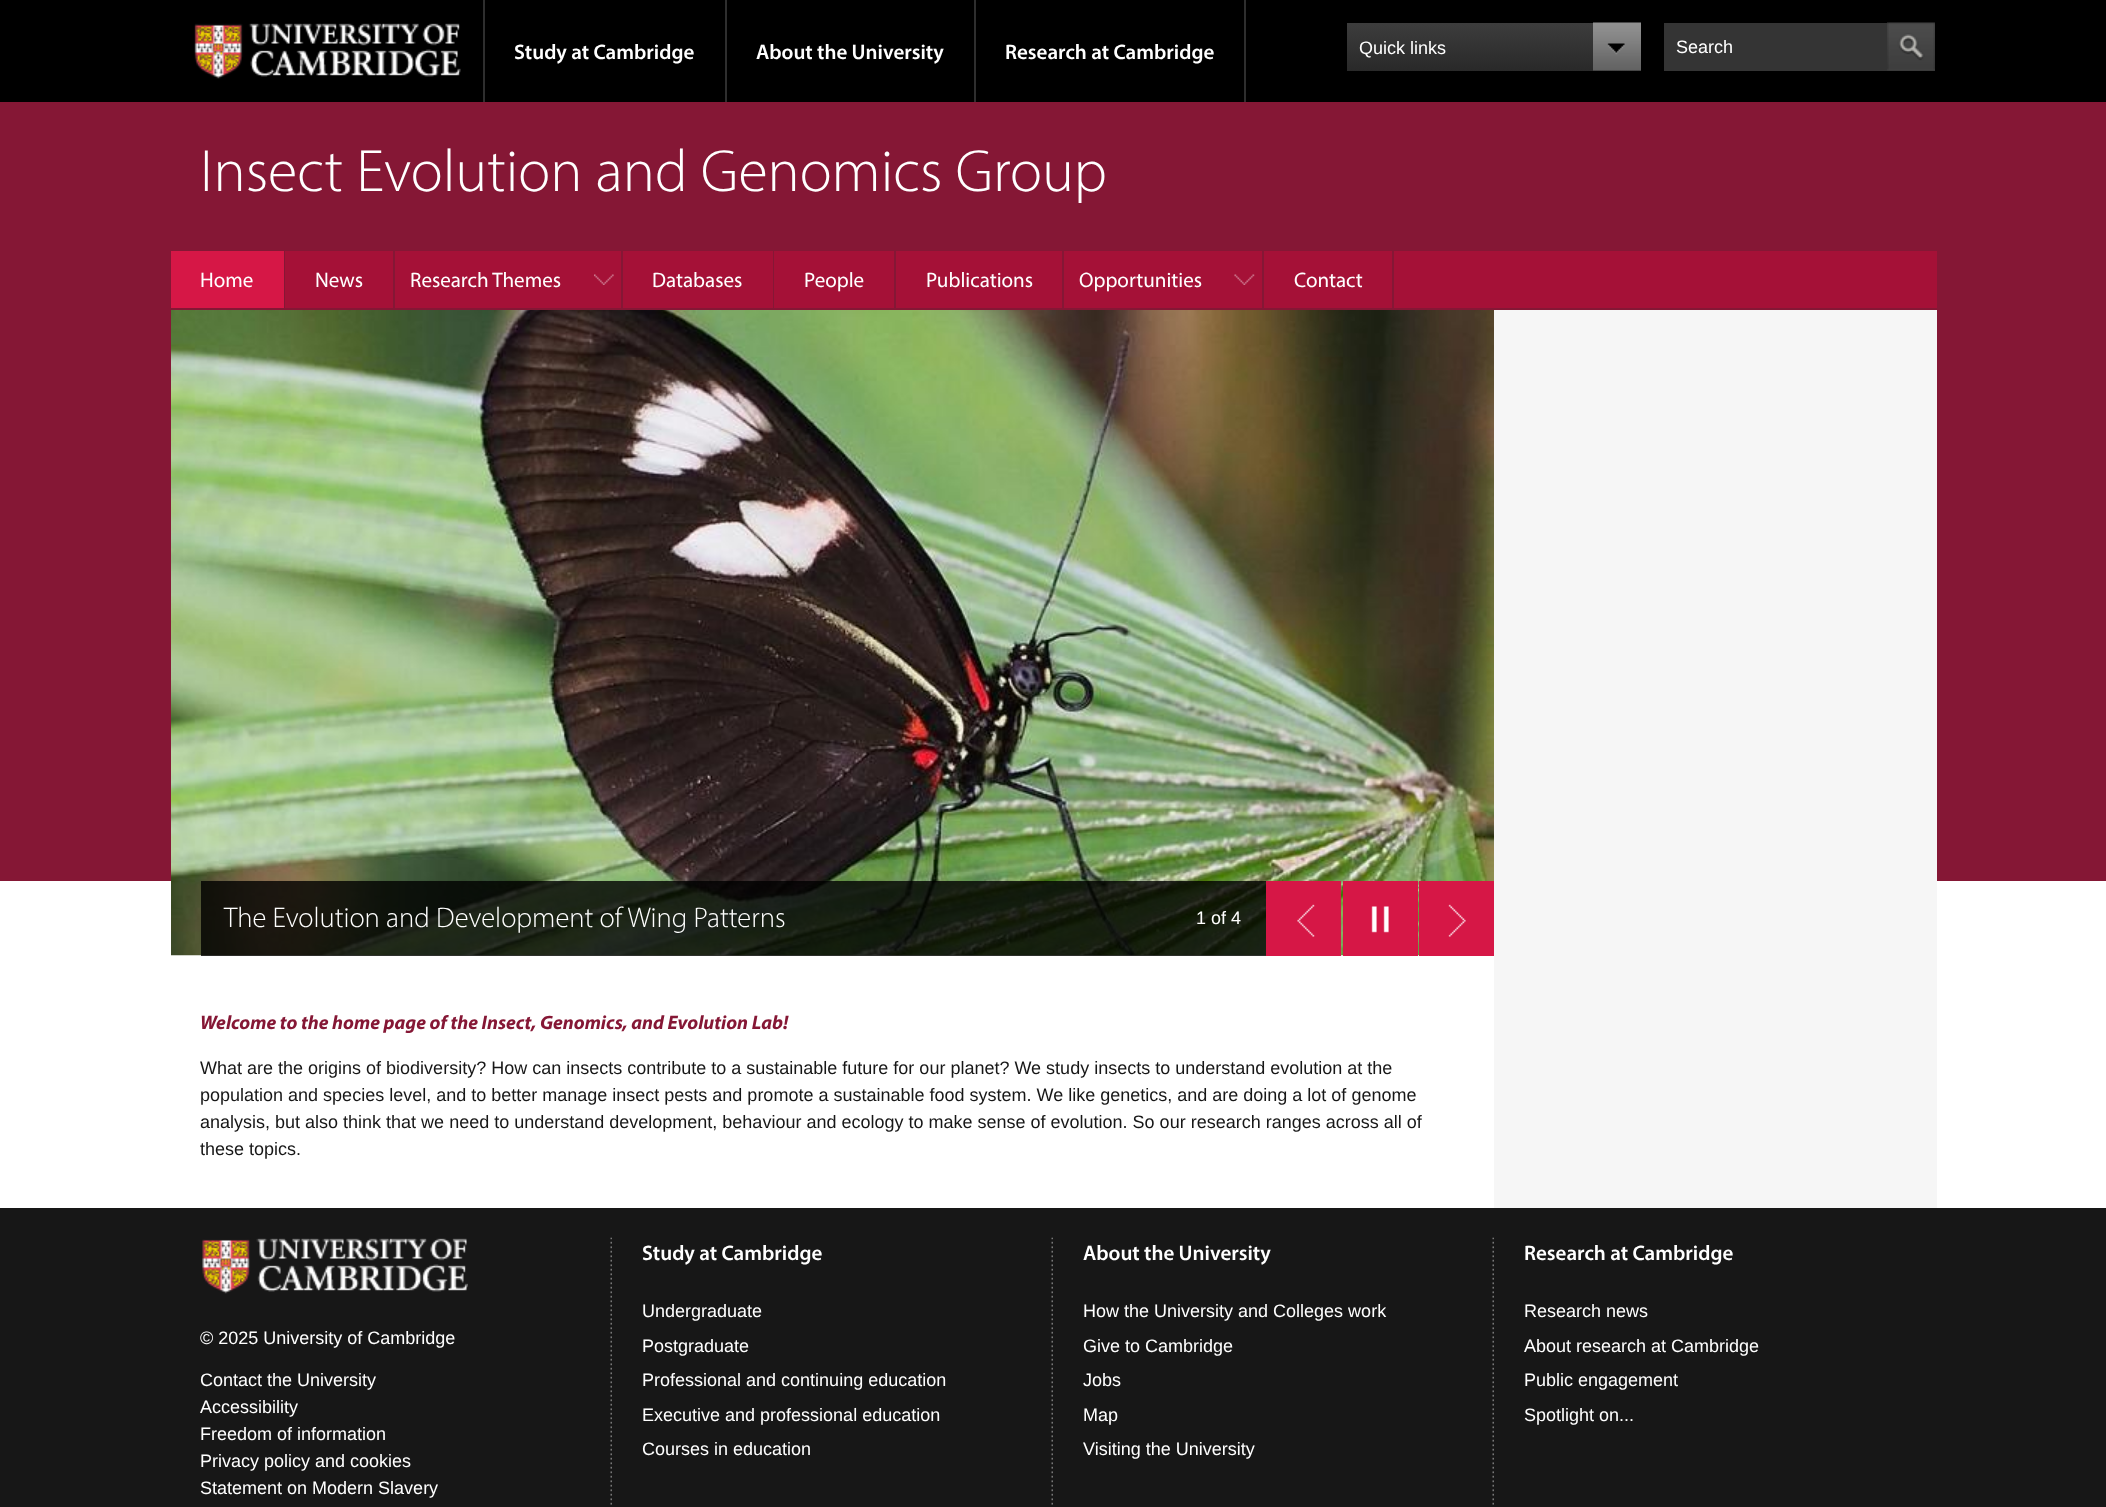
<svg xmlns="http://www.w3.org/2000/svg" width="2106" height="1507">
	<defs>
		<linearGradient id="g1" gradientUnits="userSpaceOnUse" x1="1494" y1="22" x2="1494" y2="71"><stop offset="0" stop-color="#3D3D3D" /><stop offset="1" stop-color="#292929" /></linearGradient>
	</defs>
	<rect width="100%" height="100%" fill="#000000" />
	<image x="194" y="23" width="267" height="56" href="assets/img1.png" />
	<rect x="483" y="0" width="2" height="102" fill="#2E2E2E" />
	<rect x="725" y="0" width="2" height="102" fill="#2E2E2E" />
	<text x="514" y="59" font-family="Myriad" font-size="21" font-weight="600" fill="#FFFFFF">Study at Cambridge</text>
	<rect x="974" y="0" width="2" height="102" fill="#2E2E2E" />
	<text x="756" y="59" font-family="Myriad" font-size="21" font-weight="600" fill="#FFFFFF">About the University</text>
	<rect x="1244" y="0" width="2" height="102" fill="#2E2E2E" />
	<text x="1005" y="59" font-family="Myriad" font-size="21" font-weight="600" fill="#FFFFFF">Research at Cambridge</text>
	<rect x="1347" y="23" width="294" height="48" fill="url(#g1)" />
	<text x="1359" y="54" font-family="Liberation Sans" font-size="18" fill="#FFFFFF">Quick links</text>
	<image x="1593" y="22" width="48" height="49" href="assets/img2.png" />
	<rect x="1664" y="23" width="271" height="48" fill="#343434" />
	<text x="1676" y="53" font-family="Liberation Sans" font-size="18" fill="#FFFFFF">Search</text>
	<image x="1887" y="22" width="48" height="49" href="assets/img3.png" />
	<rect x="0" y="102" width="2106" height="779" fill="#851735" />
	<text x="200" y="191" font-family="Myriad" font-size="60" font-weight="300" fill="#FFFFFF">Insect Evolution and Genomics Group</text>
	<rect x="1394" y="251" width="543" height="57" fill="#A51137" />
	<rect x="171" y="251" width="113" height="57" fill="#D61746" />
	<text x="200" y="287" font-family="Myriad" font-size="21" fill="#FFFFFF">Home</text>
	<rect x="285" y="251" width="108" height="57" fill="#A51137" />
	<text x="315" y="287" font-family="Myriad" font-size="21" fill="#FFFFFF">News</text>
	<rect x="395" y="251" width="226" height="57" fill="#A51137" />
	<image x="594" y="274" width="20" height="11" href="assets/img4.png" />
	<text x="410" y="287" font-family="Myriad" font-size="21" fill="#FFFFFF">Research Themes</text>
	<rect x="623" y="251" width="150" height="57" fill="#A51137" />
	<text x="652" y="287" font-family="Myriad" font-size="21" fill="#FFFFFF">Databases</text>
	<rect x="774" y="251" width="120" height="57" fill="#A51137" />
	<text x="804" y="287" font-family="Myriad" font-size="21" fill="#FFFFFF">People</text>
	<rect x="896" y="251" width="166" height="57" fill="#A51137" />
	<text x="926" y="287" font-family="Myriad" font-size="21" fill="#FFFFFF">Publications</text>
	<rect x="1064" y="251" width="198" height="57" fill="#A51137" />
	<image x="1234" y="274" width="21" height="11" href="assets/img5.png" />
	<text x="1079" y="287" font-family="Myriad" font-size="21" fill="#FFFFFF">Opportunities</text>
	<rect x="1264" y="251" width="128" height="57" fill="#A51137" />
	<text x="1294" y="287" font-family="Myriad" font-size="21" fill="#FFFFFF">Contact</text>
	<rect x="0" y="881" width="2106" height="327" fill="#FFFFFF" />
	<image x="171" y="310" width="1323" height="646" href="assets/img6.png" />
	<rect x="201" y="881" width="1065" height="75" fill="#000000" fill-opacity="0.8" />
	<text x="224" y="927" font-family="Myriad" font-size="28.5" font-weight="300" fill="#FFFFFF">The Evolution and Development of Wing Patterns</text>
	<text x="1196" y="924" font-family="Liberation Sans" font-size="18" fill="#FFFFFF">1 of 4</text>
	<rect x="1266" y="881" width="75" height="75" fill="#D61746" />
	<image x="1297" y="904" width="18" height="33" href="assets/img7.png" />
	<rect x="1343" y="881" width="75" height="75" fill="#D61746" />
	<image x="1371" y="906" width="18" height="27" href="assets/img8.png" />
	<rect x="1419" y="881" width="75" height="75" fill="#D61746" />
	<image x="1448" y="904" width="18" height="33" href="assets/img9.png" />
	<text x="200" y="1029" font-family="Myriad" font-size="19.5" font-weight="700" font-style="italic" fill="#851735">Welcome to the home page of the Insect, Genomics, and Evolution Lab!</text>
	<g font-family="Liberation Sans" font-size="18" fill="#171717">
		<text x="200" y="1074">What are the origins of biodiversity? How can insects contribute to a sustainable future for our planet? We study insects to understand evolution at the</text>
		<text x="200" y="1101">population and species level, and to better manage insect pests and promote a sustainable food system. We like genetics, and are doing a lot of genome</text>
		<text x="200" y="1128">analysis, but also think that we need to understand development, behaviour and ecology to make sense of evolution. So our research ranges across all of</text>
		<text x="200" y="1155">these topics.</text>
	</g>
	<rect x="1494" y="310" width="443" height="898" fill="#F6F6F6" />
	<rect x="0" y="1208" width="2106" height="299" fill="#171717" />
	<image x="610" y="1237" width="2" height="268" href="assets/img10.png" />
	<image x="202" y="1238" width="266" height="56" href="assets/img11.png" />
	<g font-family="Liberation Sans" font-size="18" fill="#FFFFFF">
		<text x="200" y="1344">© 2025 University of Cambridge</text>
		<text x="200" y="1386">Contact the University</text>
		<text x="200" y="1413">Accessibility</text>
		<text x="200" y="1440">Freedom of information</text>
		<text x="200" y="1467">Privacy policy and cookies</text>
		<text x="200" y="1494">Statement on Modern Slavery</text>
	</g>
	<image x="1051" y="1237" width="2" height="268" href="assets/img10.png" />
	<text x="642" y="1260" font-family="Myriad" font-size="21" font-weight="600" fill="#FFFFFF">Study at Cambridge</text>
	<g font-family="Liberation Sans" font-size="18" fill="#FFFFFF">
		<text x="642" y="1317">Undergraduate</text>
		<text x="642" y="1352">Postgraduate</text>
		<text x="642" y="1386">Professional and continuing education</text>
		<text x="642" y="1421">Executive and professional education</text>
		<text x="642" y="1455">Courses in education</text>
	</g>
	<image x="1492" y="1237" width="2" height="268" href="assets/img10.png" />
	<text x="1083" y="1260" font-family="Myriad" font-size="21" font-weight="600" fill="#FFFFFF">About the University</text>
	<g font-family="Liberation Sans" font-size="18" fill="#FFFFFF">
		<text x="1083" y="1317">How the University and Colleges work</text>
		<text x="1083" y="1352">Give to Cambridge</text>
		<text x="1083" y="1386">Jobs</text>
		<text x="1083" y="1421">Map</text>
		<text x="1083" y="1455">Visiting the University</text>
	</g>
	<text x="1524" y="1260" font-family="Myriad" font-size="21" font-weight="600" fill="#FFFFFF">Research at Cambridge</text>
	<g font-family="Liberation Sans" font-size="18" fill="#FFFFFF">
		<text x="1524" y="1317">Research news</text>
		<text x="1524" y="1352">About research at Cambridge</text>
		<text x="1524" y="1386">Public engagement</text>
		<text x="1524" y="1421">Spotlight on...</text>
	</g>
</svg>
